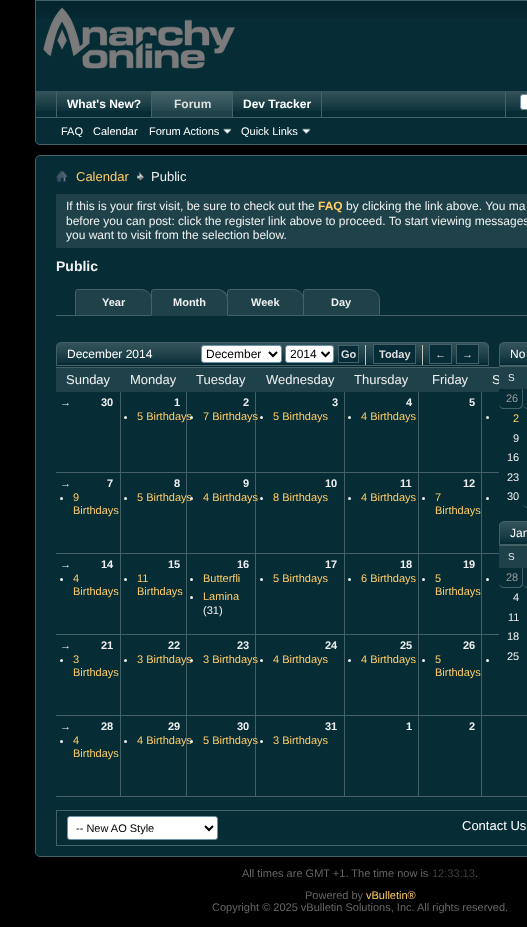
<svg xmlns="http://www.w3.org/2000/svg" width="527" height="927">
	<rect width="100%" height="100%" fill="#000000" />
	<path d="M35 0H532V140C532 143 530 145 527 145H40C37 145 35 143 35 140Z" fill="#062C36" />
	<image x="36" y="1" width="491" height="17" href="assets/img1.png" />
	<path d="M35.5 .5H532.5V140C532.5 142.5 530.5 144.5 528 144.5H40C37.5 144.5 35.5 142.5 35.5 140Z" fill="none" stroke="#446168" />
	<image x="43" y="7" width="192" height="62" href="assets/img2.png" />
	<path d="M36 91H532V139C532 142 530 144 527 144H41C38 144 36 142 36 139Z" fill="#062C35" />
	<image x="36" y="91" width="491" height="20" href="assets/img3.png" />
	<rect x="151" y="91" width="1" height="26" fill="#446168" />
	<rect x="56" y="91" width="1" height="26" fill="#446168" />
	<rect x="57" y="91" width="94" height="20" fill="#062C35" />
	<image x="57" y="91" width="94" height="20" href="assets/img4.png" />
	<text x="67" y="108" font-family="Liberation Sans" font-size="12" font-weight="700" fill="#FFFFFF">What's New?</text>
	<rect x="232" y="91" width="1" height="26" fill="#446168" />
	<rect x="152" y="91" width="80" height="26" fill="#1F424A" />
	<image x="152" y="91" width="80" height="20" href="assets/img5.png" />
	<text x="174" y="108" font-family="Liberation Sans" font-size="12" font-weight="700" fill="#DFDFDF">Forum</text>
	<rect x="321" y="91" width="1" height="26" fill="#446168" />
	<rect x="233" y="91" width="88" height="20" fill="#062C35" />
	<image x="233" y="91" width="88" height="20" href="assets/img6.png" />
	<text x="243" y="108" font-family="Liberation Sans" font-size="12" font-weight="700" fill="#FFFFFF">Dev Tracker</text>
	<rect x="36" y="117" width="491" height="1" fill="#446168" />
	<g font-family="Liberation Sans" font-size="11" fill="#FFFFFF">
		<text x="61" y="135">FAQ</text>
		<text x="93" y="135">Calendar</text>
		<text x="149" y="135">Forum Actions</text>
	</g>
	<image x="223" y="128" width="9" height="6" href="assets/img7.png" />
	<text x="241" y="135" font-family="Liberation Sans" font-size="11" fill="#FFFFFF">Quick Links</text>
	<image x="302" y="128" width="9" height="6" href="assets/img7.png" />
	<rect x="505" y="91" width="1" height="26" fill="#446168" />
	<rect x="520.5" y="94.5" width="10" height="15" rx="2.5" fill="#FFFFFF" stroke="#6B91AB" />
	<rect x="35.5" y="155.5" width="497" height="701" rx="4.5" fill="#062C36" stroke="#446168" />
	<image x="56" y="170" width="12" height="12" href="assets/img8.png" />
	<image x="137" y="172" width="7" height="10" href="assets/img9.png" />
	<text x="76" y="181" font-family="Liberation Sans" font-size="13" fill="#FFCC66">Calendar</text>
	<text x="151" y="181" font-family="Liberation Sans" font-size="13" fill="#EFEFEF">Public</text>
	<rect x="56" y="194" width="471" height="54" fill="#1F424A" />
	<text x="66" y="210" font-family="Liberation Sans" font-size="12" fill="#EFEFEF">If this is your first visit, be sure to check out the</text>
	<text x="318" y="210" font-family="Liberation Sans" font-size="12" font-weight="700" fill="#FFCC66">FAQ</text>
	<g font-family="Liberation Sans" font-size="12" fill="#EFEFEF">
		<text x="346" y="210">by clicking the link above. You ma</text>
		<text x="66" y="225">before you can post: click the register link above to proceed. To start viewing messages</text>
		<text x="66" y="239">you want to visit from the selection below.</text>
	</g>
	<text x="56" y="271" font-family="Liberation Sans" font-size="14" font-weight="700" fill="#EFEFEF">Public</text>
	<rect x="56" y="315" width="471" height="1" fill="#446168" />
	<path d="M78 289.5H141C147 289.5 151.5 294 151.5 300V315.5H75.5V292C75.5 290.5 76.5 289.5 78 289.5Z" fill="#1F424A" stroke="#446168" />
	<text x="102" y="306" font-family="Liberation Sans" font-size="11" font-weight="700" fill="#EFEFEF">Year</text>
	<path d="M230 289.5H293C299 289.5 303.5 294 303.5 300V315.5H227.5V292C227.5 290.5 228.5 289.5 230 289.5Z" fill="#1F424A" stroke="#446168" />
	<path d="M154 289H217C223 289 228 294 228 300V316H151V292C151 290.5 152.5 289 154 289Z" fill="#1F424A" />
	<path d="M154 289L152 290L153 291L154 290H219C221 291 223 291 224 293L225 292C223 290 220 289 217 289Z" fill="#446168" />
	<path d="M228 316V300C228 297 227 294 225 292L224 293C226 294.5 227 297 227 300V315Z" fill="#446168" />
	<path d="M151 316L152 315V292C152 291.5 152 291 152.5 290.5L152 290C151 290 151 291 151 292Z" fill="#446168" />
	<g font-family="Liberation Sans" font-size="11" font-weight="700" fill="#EFEFEF">
		<text x="173" y="306">Month</text>
		<text x="251" y="306">Week</text>
	</g>
	<path d="M306 289.5H369C375 289.5 379.5 294 379.5 300V315.5H303.5V292C303.5 290.5 304.5 289.5 306 289.5Z" fill="#1F424A" stroke="#446168" />
	<text x="331" y="306" font-family="Liberation Sans" font-size="11" font-weight="700" fill="#EFEFEF">Day</text>
	<image x="56" y="343" width="433" height="20" href="assets/img10.png" />
	<path d="M61 342.5H484C486.5 342.5 488.5 344.5 488.5 347V365.5H56.5V347C56.5 344.5 58.5 342.5 61 342.5Z" fill="none" stroke="#446168" />
	<text x="67" y="358" font-family="Liberation Sans" font-size="12" fill="#FFFFFF">December 2014</text>
	<rect x="201.5" y="345.5" width="80" height="17" rx="2.5" fill="#FFFFFF" stroke="#6B91AB" />
	<path d="M269 352L273 356L277 352" fill="none" stroke="#000000" stroke-width="2" />
	<text x="206" y="358" font-family="Liberation Sans" font-size="12" fill="#000000">December</text>
	<rect x="285.5" y="345.5" width="48" height="17" rx="2.5" fill="#FFFFFF" stroke="#6B91AB" />
	<path d="M321.5 352L325.5 356L329.5 352" fill="none" stroke="#000000" stroke-width="2" />
	<text x="290" y="358" font-family="Liberation Sans" font-size="12" fill="#000000">2014</text>
	<rect x="338.5" y="345.5" width="20" height="17" fill="#062C37" stroke="#446168" />
	<text x="341" y="358" font-family="Liberation Sans" font-size="11" font-weight="700" fill="#DFDFDF">Go</text>
	<rect x="365" y="345" width="1" height="20" fill="#C5C2B8" />
	<rect x="373.5" y="344.5" width="42" height="19" fill="#062C37" stroke="#446168" />
	<text x="379" y="358" font-family="Liberation Sans" font-size="11" font-weight="700" fill="#DFDFDF">Today</text>
	<rect x="422" y="345" width="1" height="20" fill="#C5C2B8" />
	<rect x="429.5" y="344.5" width="22" height="19" fill="#062C37" stroke="#446168" />
	<text x="435" y="358" font-family="Liberation Sans" font-size="11" font-weight="700" fill="#DFDFDF">←</text>
	<rect x="456.5" y="344.5" width="22" height="19" fill="#062C37" stroke="#446168" />
	<text x="462" y="358" font-family="Liberation Sans" font-size="11" font-weight="700" fill="#DFDFDF">→</text>
	<rect x="56" y="368" width="443" height="24" fill="#1F424A" />
	<g font-family="Liberation Sans" font-size="13" fill="#EFEFEF">
		<text x="66" y="384">Sunday</text>
		<text x="130" y="384">Monday</text>
		<text x="196" y="384">Tuesday</text>
		<text x="266" y="384">Wednesday</text>
		<text x="354" y="384">Thursday</text>
		<text x="432" y="384">Friday</text>
	</g>
	<rect x="56" y="367" width="443" height="1" fill="#446168" />
	<text x="492" y="384" font-family="Liberation Sans" font-size="13" fill="#EFEFEF">S</text>
	<rect x="481" y="796" width="46" height="1" fill="#446168" />
	<rect x="481" y="715" width="1" height="82" fill="#446168" />
	<rect x="481" y="715" width="46" height="1" fill="#446168" />
	<rect x="481" y="634" width="1" height="82" fill="#446168" />
	<rect x="481" y="634" width="18" height="1" fill="#446168" />
	<rect x="481" y="553" width="1" height="82" fill="#446168" />
	<rect x="481" y="553" width="18" height="1" fill="#446168" />
	<rect x="481" y="472" width="1" height="82" fill="#446168" />
	<rect x="481" y="472" width="18" height="1" fill="#446168" />
	<rect x="481" y="392" width="1" height="81" fill="#446168" />
	<rect x="418" y="796" width="64" height="1" fill="#446168" />
	<rect x="418" y="715" width="1" height="82" fill="#446168" />
	<rect x="418" y="715" width="64" height="1" fill="#446168" />
	<rect x="418" y="634" width="1" height="82" fill="#446168" />
	<rect x="418" y="634" width="64" height="1" fill="#446168" />
	<rect x="418" y="553" width="1" height="82" fill="#446168" />
	<rect x="418" y="553" width="64" height="1" fill="#446168" />
	<rect x="418" y="472" width="1" height="82" fill="#446168" />
	<rect x="418" y="472" width="64" height="1" fill="#446168" />
	<rect x="418" y="392" width="1" height="81" fill="#446168" />
	<rect x="344" y="796" width="75" height="1" fill="#446168" />
	<rect x="344" y="715" width="1" height="82" fill="#446168" />
	<rect x="344" y="715" width="75" height="1" fill="#446168" />
	<rect x="344" y="634" width="1" height="82" fill="#446168" />
	<rect x="344" y="634" width="75" height="1" fill="#446168" />
	<rect x="344" y="553" width="1" height="82" fill="#446168" />
	<rect x="344" y="553" width="75" height="1" fill="#446168" />
	<rect x="344" y="472" width="1" height="82" fill="#446168" />
	<rect x="344" y="472" width="75" height="1" fill="#446168" />
	<rect x="344" y="392" width="1" height="81" fill="#446168" />
	<rect x="255" y="796" width="90" height="1" fill="#446168" />
	<rect x="255" y="715" width="1" height="82" fill="#446168" />
	<rect x="255" y="715" width="90" height="1" fill="#446168" />
	<rect x="255" y="634" width="1" height="82" fill="#446168" />
	<rect x="255" y="634" width="90" height="1" fill="#446168" />
	<rect x="255" y="553" width="1" height="82" fill="#446168" />
	<rect x="255" y="553" width="90" height="1" fill="#446168" />
	<rect x="255" y="472" width="1" height="82" fill="#446168" />
	<rect x="255" y="472" width="90" height="1" fill="#446168" />
	<rect x="255" y="392" width="1" height="81" fill="#446168" />
	<rect x="186" y="796" width="70" height="1" fill="#446168" />
	<rect x="186" y="715" width="1" height="82" fill="#446168" />
	<rect x="186" y="715" width="70" height="1" fill="#446168" />
	<rect x="186" y="634" width="1" height="82" fill="#446168" />
	<rect x="186" y="634" width="70" height="1" fill="#446168" />
	<rect x="186" y="553" width="1" height="82" fill="#446168" />
	<rect x="186" y="553" width="70" height="1" fill="#446168" />
	<rect x="186" y="472" width="1" height="82" fill="#446168" />
	<rect x="186" y="472" width="70" height="1" fill="#446168" />
	<rect x="186" y="392" width="1" height="81" fill="#446168" />
	<rect x="120" y="796" width="67" height="1" fill="#446168" />
	<rect x="120" y="715" width="1" height="82" fill="#446168" />
	<rect x="120" y="715" width="67" height="1" fill="#446168" />
	<rect x="120" y="634" width="1" height="82" fill="#446168" />
	<rect x="120" y="634" width="67" height="1" fill="#446168" />
	<rect x="120" y="553" width="1" height="82" fill="#446168" />
	<rect x="120" y="553" width="67" height="1" fill="#446168" />
	<rect x="120" y="472" width="1" height="82" fill="#446168" />
	<rect x="120" y="472" width="67" height="1" fill="#446168" />
	<rect x="120" y="392" width="1" height="81" fill="#446168" />
	<rect x="56" y="472" width="65" height="1" fill="#446168" />
	<g font-family="Liberation Sans" font-size="11" font-weight="700" fill="#EFEFEF">
		<text x="60" y="406">→</text>
		<text x="101" y="406">30</text>
		<text x="174" y="406">1</text>
	</g>
	<circle cx="125.5" cy="417.5" r="1.5" fill="#EFEFEF" />
	<text x="137" y="420" font-family="Liberation Sans" font-size="11" fill="#FFCC66">5 Birthdays</text>
	<text x="243" y="406" font-family="Liberation Sans" font-size="11" font-weight="700" fill="#EFEFEF">2</text>
	<circle cx="191.5" cy="417.5" r="1.5" fill="#EFEFEF" />
	<text x="203" y="420" font-family="Liberation Sans" font-size="11" fill="#FFCC66">7 Birthdays</text>
	<text x="332" y="406" font-family="Liberation Sans" font-size="11" font-weight="700" fill="#EFEFEF">3</text>
	<circle cx="261.5" cy="417.5" r="1.5" fill="#EFEFEF" />
	<text x="273" y="420" font-family="Liberation Sans" font-size="11" fill="#FFCC66">5 Birthdays</text>
	<text x="406" y="406" font-family="Liberation Sans" font-size="11" font-weight="700" fill="#EFEFEF">4</text>
	<circle cx="349.5" cy="417.5" r="1.5" fill="#EFEFEF" />
	<text x="361" y="420" font-family="Liberation Sans" font-size="11" fill="#FFCC66">4 Birthdays</text>
	<text x="469" y="406" font-family="Liberation Sans" font-size="11" font-weight="700" fill="#EFEFEF">5</text>
	<circle cx="487.5" cy="417.5" r="1.5" fill="#EFEFEF" />
	<rect x="56" y="553" width="65" height="1" fill="#446168" />
	<g font-family="Liberation Sans" font-size="11" font-weight="700" fill="#EFEFEF">
		<text x="60" y="487">→</text>
		<text x="107" y="487">7</text>
	</g>
	<circle cx="61.5" cy="498.5" r="1.5" fill="#EFEFEF" />
	<g font-family="Liberation Sans" font-size="11" fill="#FFCC66">
		<text x="73" y="501">9</text>
		<text x="73" y="514">Birthdays</text>
	</g>
	<text x="174" y="487" font-family="Liberation Sans" font-size="11" font-weight="700" fill="#EFEFEF">8</text>
	<circle cx="125.5" cy="498.5" r="1.5" fill="#EFEFEF" />
	<text x="137" y="501" font-family="Liberation Sans" font-size="11" fill="#FFCC66">5 Birthdays</text>
	<text x="243" y="487" font-family="Liberation Sans" font-size="11" font-weight="700" fill="#EFEFEF">9</text>
	<circle cx="191.5" cy="498.5" r="1.5" fill="#EFEFEF" />
	<text x="203" y="501" font-family="Liberation Sans" font-size="11" fill="#FFCC66">4 Birthdays</text>
	<text x="325" y="487" font-family="Liberation Sans" font-size="11" font-weight="700" fill="#EFEFEF">10</text>
	<circle cx="261.5" cy="498.5" r="1.5" fill="#EFEFEF" />
	<text x="273" y="501" font-family="Liberation Sans" font-size="11" fill="#FFCC66">8 Birthdays</text>
	<text x="400" y="487" font-family="Liberation Sans" font-size="11" font-weight="700" fill="#EFEFEF">11</text>
	<circle cx="349.5" cy="498.5" r="1.5" fill="#EFEFEF" />
	<text x="361" y="501" font-family="Liberation Sans" font-size="11" fill="#FFCC66">4 Birthdays</text>
	<text x="463" y="487" font-family="Liberation Sans" font-size="11" font-weight="700" fill="#EFEFEF">12</text>
	<circle cx="423.5" cy="498.5" r="1.5" fill="#EFEFEF" />
	<g font-family="Liberation Sans" font-size="11" fill="#FFCC66">
		<text x="435" y="501">7</text>
		<text x="435" y="514">Birthdays</text>
	</g>
	<circle cx="487.5" cy="498.5" r="1.5" fill="#EFEFEF" />
	<rect x="56" y="634" width="65" height="1" fill="#446168" />
	<g font-family="Liberation Sans" font-size="11" font-weight="700" fill="#EFEFEF">
		<text x="60" y="568">→</text>
		<text x="101" y="568">14</text>
	</g>
	<circle cx="61.5" cy="579.5" r="1.5" fill="#EFEFEF" />
	<g font-family="Liberation Sans" font-size="11" fill="#FFCC66">
		<text x="73" y="582">4</text>
		<text x="73" y="595">Birthdays</text>
	</g>
	<text x="168" y="568" font-family="Liberation Sans" font-size="11" font-weight="700" fill="#EFEFEF">15</text>
	<circle cx="125.5" cy="579.5" r="1.5" fill="#EFEFEF" />
	<g font-family="Liberation Sans" font-size="11" fill="#FFCC66">
		<text x="137" y="582">11</text>
		<text x="137" y="595">Birthdays</text>
	</g>
	<text x="237" y="568" font-family="Liberation Sans" font-size="11" font-weight="700" fill="#EFEFEF">16</text>
	<circle cx="191.5" cy="579.5" r="1.5" fill="#EFEFEF" />
	<text x="203" y="582" font-family="Liberation Sans" font-size="11" fill="#FFCC66">Butterfli</text>
	<circle cx="191.5" cy="597.5" r="1.5" fill="#EFEFEF" />
	<text x="203" y="600" font-family="Liberation Sans" font-size="11" fill="#FFCC66">Lamina</text>
	<text x="203" y="614" font-family="Liberation Sans" font-size="11" fill="#EFEFEF">(31)</text>
	<text x="325" y="568" font-family="Liberation Sans" font-size="11" font-weight="700" fill="#EFEFEF">17</text>
	<circle cx="261.5" cy="579.5" r="1.5" fill="#EFEFEF" />
	<text x="273" y="582" font-family="Liberation Sans" font-size="11" fill="#FFCC66">5 Birthdays</text>
	<text x="400" y="568" font-family="Liberation Sans" font-size="11" font-weight="700" fill="#EFEFEF">18</text>
	<circle cx="349.5" cy="579.5" r="1.5" fill="#EFEFEF" />
	<text x="361" y="582" font-family="Liberation Sans" font-size="11" fill="#FFCC66">6 Birthdays</text>
	<text x="463" y="568" font-family="Liberation Sans" font-size="11" font-weight="700" fill="#EFEFEF">19</text>
	<circle cx="423.5" cy="579.5" r="1.5" fill="#EFEFEF" />
	<g font-family="Liberation Sans" font-size="11" fill="#FFCC66">
		<text x="435" y="582">5</text>
		<text x="435" y="595">Birthdays</text>
	</g>
	<circle cx="487.5" cy="579.5" r="1.5" fill="#EFEFEF" />
	<rect x="56" y="715" width="65" height="1" fill="#446168" />
	<g font-family="Liberation Sans" font-size="11" font-weight="700" fill="#EFEFEF">
		<text x="60" y="649">→</text>
		<text x="101" y="649">21</text>
	</g>
	<circle cx="61.5" cy="660.5" r="1.5" fill="#EFEFEF" />
	<g font-family="Liberation Sans" font-size="11" fill="#FFCC66">
		<text x="73" y="663">3</text>
		<text x="73" y="676">Birthdays</text>
	</g>
	<text x="168" y="649" font-family="Liberation Sans" font-size="11" font-weight="700" fill="#EFEFEF">22</text>
	<circle cx="125.5" cy="660.5" r="1.5" fill="#EFEFEF" />
	<text x="137" y="663" font-family="Liberation Sans" font-size="11" fill="#FFCC66">3 Birthdays</text>
	<text x="237" y="649" font-family="Liberation Sans" font-size="11" font-weight="700" fill="#EFEFEF">23</text>
	<circle cx="191.5" cy="660.5" r="1.5" fill="#EFEFEF" />
	<text x="203" y="663" font-family="Liberation Sans" font-size="11" fill="#FFCC66">3 Birthdays</text>
	<text x="325" y="649" font-family="Liberation Sans" font-size="11" font-weight="700" fill="#EFEFEF">24</text>
	<circle cx="261.5" cy="660.5" r="1.5" fill="#EFEFEF" />
	<text x="273" y="663" font-family="Liberation Sans" font-size="11" fill="#FFCC66">4 Birthdays</text>
	<text x="400" y="649" font-family="Liberation Sans" font-size="11" font-weight="700" fill="#EFEFEF">25</text>
	<circle cx="349.5" cy="660.5" r="1.5" fill="#EFEFEF" />
	<text x="361" y="663" font-family="Liberation Sans" font-size="11" fill="#FFCC66">4 Birthdays</text>
	<text x="463" y="649" font-family="Liberation Sans" font-size="11" font-weight="700" fill="#EFEFEF">26</text>
	<circle cx="423.5" cy="660.5" r="1.5" fill="#EFEFEF" />
	<g font-family="Liberation Sans" font-size="11" fill="#FFCC66">
		<text x="435" y="663">5</text>
		<text x="435" y="676">Birthdays</text>
	</g>
	<circle cx="487.5" cy="660.5" r="1.5" fill="#EFEFEF" />
	<rect x="56" y="796" width="65" height="1" fill="#446168" />
	<g font-family="Liberation Sans" font-size="11" font-weight="700" fill="#EFEFEF">
		<text x="60" y="730">→</text>
		<text x="101" y="730">28</text>
	</g>
	<circle cx="61.5" cy="741.5" r="1.5" fill="#EFEFEF" />
	<g font-family="Liberation Sans" font-size="11" fill="#FFCC66">
		<text x="73" y="744">4</text>
		<text x="73" y="757">Birthdays</text>
	</g>
	<text x="168" y="730" font-family="Liberation Sans" font-size="11" font-weight="700" fill="#EFEFEF">29</text>
	<circle cx="125.5" cy="741.5" r="1.5" fill="#EFEFEF" />
	<text x="137" y="744" font-family="Liberation Sans" font-size="11" fill="#FFCC66">4 Birthdays</text>
	<text x="237" y="730" font-family="Liberation Sans" font-size="11" font-weight="700" fill="#EFEFEF">30</text>
	<circle cx="191.5" cy="741.5" r="1.5" fill="#EFEFEF" />
	<text x="203" y="744" font-family="Liberation Sans" font-size="11" fill="#FFCC66">5 Birthdays</text>
	<text x="325" y="730" font-family="Liberation Sans" font-size="11" font-weight="700" fill="#EFEFEF">31</text>
	<circle cx="261.5" cy="741.5" r="1.5" fill="#EFEFEF" />
	<text x="273" y="744" font-family="Liberation Sans" font-size="11" fill="#FFCC66">3 Birthdays</text>
	<g font-family="Liberation Sans" font-size="11" font-weight="700" fill="#EFEFEF">
		<text x="406" y="730">1</text>
		<text x="469" y="730">2</text>
	</g>
	<image x="499" y="343" width="28" height="20" href="assets/img11.png" />
	<path d="M504 342.5H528C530.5 342.5 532.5 344.5 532.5 347V365.5H499.5V347C499.5 344.5 501.5 342.5 504 342.5Z" fill="none" stroke="#446168" />
	<text x="510" y="358" font-family="Liberation Sans" font-size="12" fill="#FFFFFF">No</text>
	<rect x="499" y="376" width="1" height="8" fill="#062C35" />
	<rect x="499" y="366" width="28" height="1" fill="#446168" />
	<rect x="499" y="367" width="28" height="22" fill="#1F424A" />
	<text x="508" y="381" font-family="Liberation Sans" font-size="10" fill="#EFEFEF">S</text>
	<path d="M499 389H523V404C523 407 521 409 518 409H504C501 409 499 407 499 404ZM499 389H522V404C522 406 520 408 518 408H504C501 408 499 406 499 404ZM523 389H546V404C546 407 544 409 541 409H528C525 409 523 407 523 404ZM523 389H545V404C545 406 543 408 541 408H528C525 408 523 406 523 404Z" fill="#446168" fill-rule="evenodd" />
	<text x="506" y="402" font-family="Liberation Sans" font-size="11" fill="#999999">26</text>
	<text x="513" y="422" font-family="Liberation Sans" font-size="11" fill="#FFCC66">2</text>
	<g font-family="Liberation Sans" font-size="11" fill="#EFEFEF">
		<text x="513" y="442">9</text>
		<text x="507" y="461">16</text>
		<text x="507" y="481">23</text>
		<text x="507" y="500">30</text>
	</g>
	<path d="M523 487H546V503C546 506 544 508 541 508H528C525 508 523 506 523 503ZM523 487H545V503C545 505 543 507 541 507H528C525 507 523 505 523 503Z" fill="#446168" fill-rule="evenodd" />
	<image x="499" y="522" width="28" height="20" href="assets/img11.png" />
	<path d="M504 521.5H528C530.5 521.5 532.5 523.5 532.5 526V544.5H499.5V526C499.5 523.5 501.5 521.5 504 521.5Z" fill="none" stroke="#446168" />
	<text x="510" y="537" font-family="Liberation Sans" font-size="12" fill="#FFFFFF">Jan</text>
	<rect x="499" y="545" width="28" height="1" fill="#446168" />
	<rect x="499" y="546" width="28" height="22" fill="#1F424A" />
	<text x="508" y="560" font-family="Liberation Sans" font-size="10" fill="#EFEFEF">S</text>
	<path d="M499 568H523V583C523 586 521 588 518 588H504C501 588 499 586 499 583ZM499 568H522V583C522 585 520 587 518 587H504C501 587 499 585 499 583ZM523 568H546V583C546 586 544 588 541 588H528C525 588 523 586 523 583ZM523 568H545V583C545 585 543 587 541 587H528C525 587 523 585 523 583Z" fill="#446168" fill-rule="evenodd" />
	<text x="506" y="581" font-family="Liberation Sans" font-size="11" fill="#999999">28</text>
	<g font-family="Liberation Sans" font-size="11" fill="#EFEFEF">
		<text x="513" y="601">4</text>
		<text x="508" y="621">11</text>
		<text x="507" y="640">18</text>
		<text x="507" y="660">25</text>
	</g>
	<rect x="56.5" y="810.5" width="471" height="35" fill="none" stroke="#446168" />
	<rect x="67.5" y="816.5" width="150" height="23" rx="2.5" fill="#FFFFFF" stroke="#6B91AB" />
	<path d="M205 826L209 830L213 826" fill="none" stroke="#000000" stroke-width="2" />
	<text x="76" y="832" font-family="Liberation Sans" font-size="11" fill="#000000">-- New AO Style</text>
	<text x="462" y="830" font-family="Liberation Sans" font-size="13" fill="#FFFFFF">Contact Us</text>
	<text x="242" y="877" font-family="Liberation Sans" font-size="11" fill="#666666">All times are GMT +1. The time now is</text>
	<text x="432" y="877" font-family="Liberation Sans" font-size="11" fill="#3E3E3E">12:33:13</text>
	<g font-family="Liberation Sans" font-size="11" fill="#666666">
		<text x="475" y="877">.</text>
		<text x="305" y="899">Powered by</text>
	</g>
	<text x="366" y="899" font-family="Liberation Sans" font-size="11" fill="#FFCC66">vBulletin®</text>
	<text x="212" y="911" font-family="Liberation Sans" font-size="11" fill="#666666">Copyright © 2025 vBulletin Solutions, Inc. All rights reserved.</text>
</svg>
